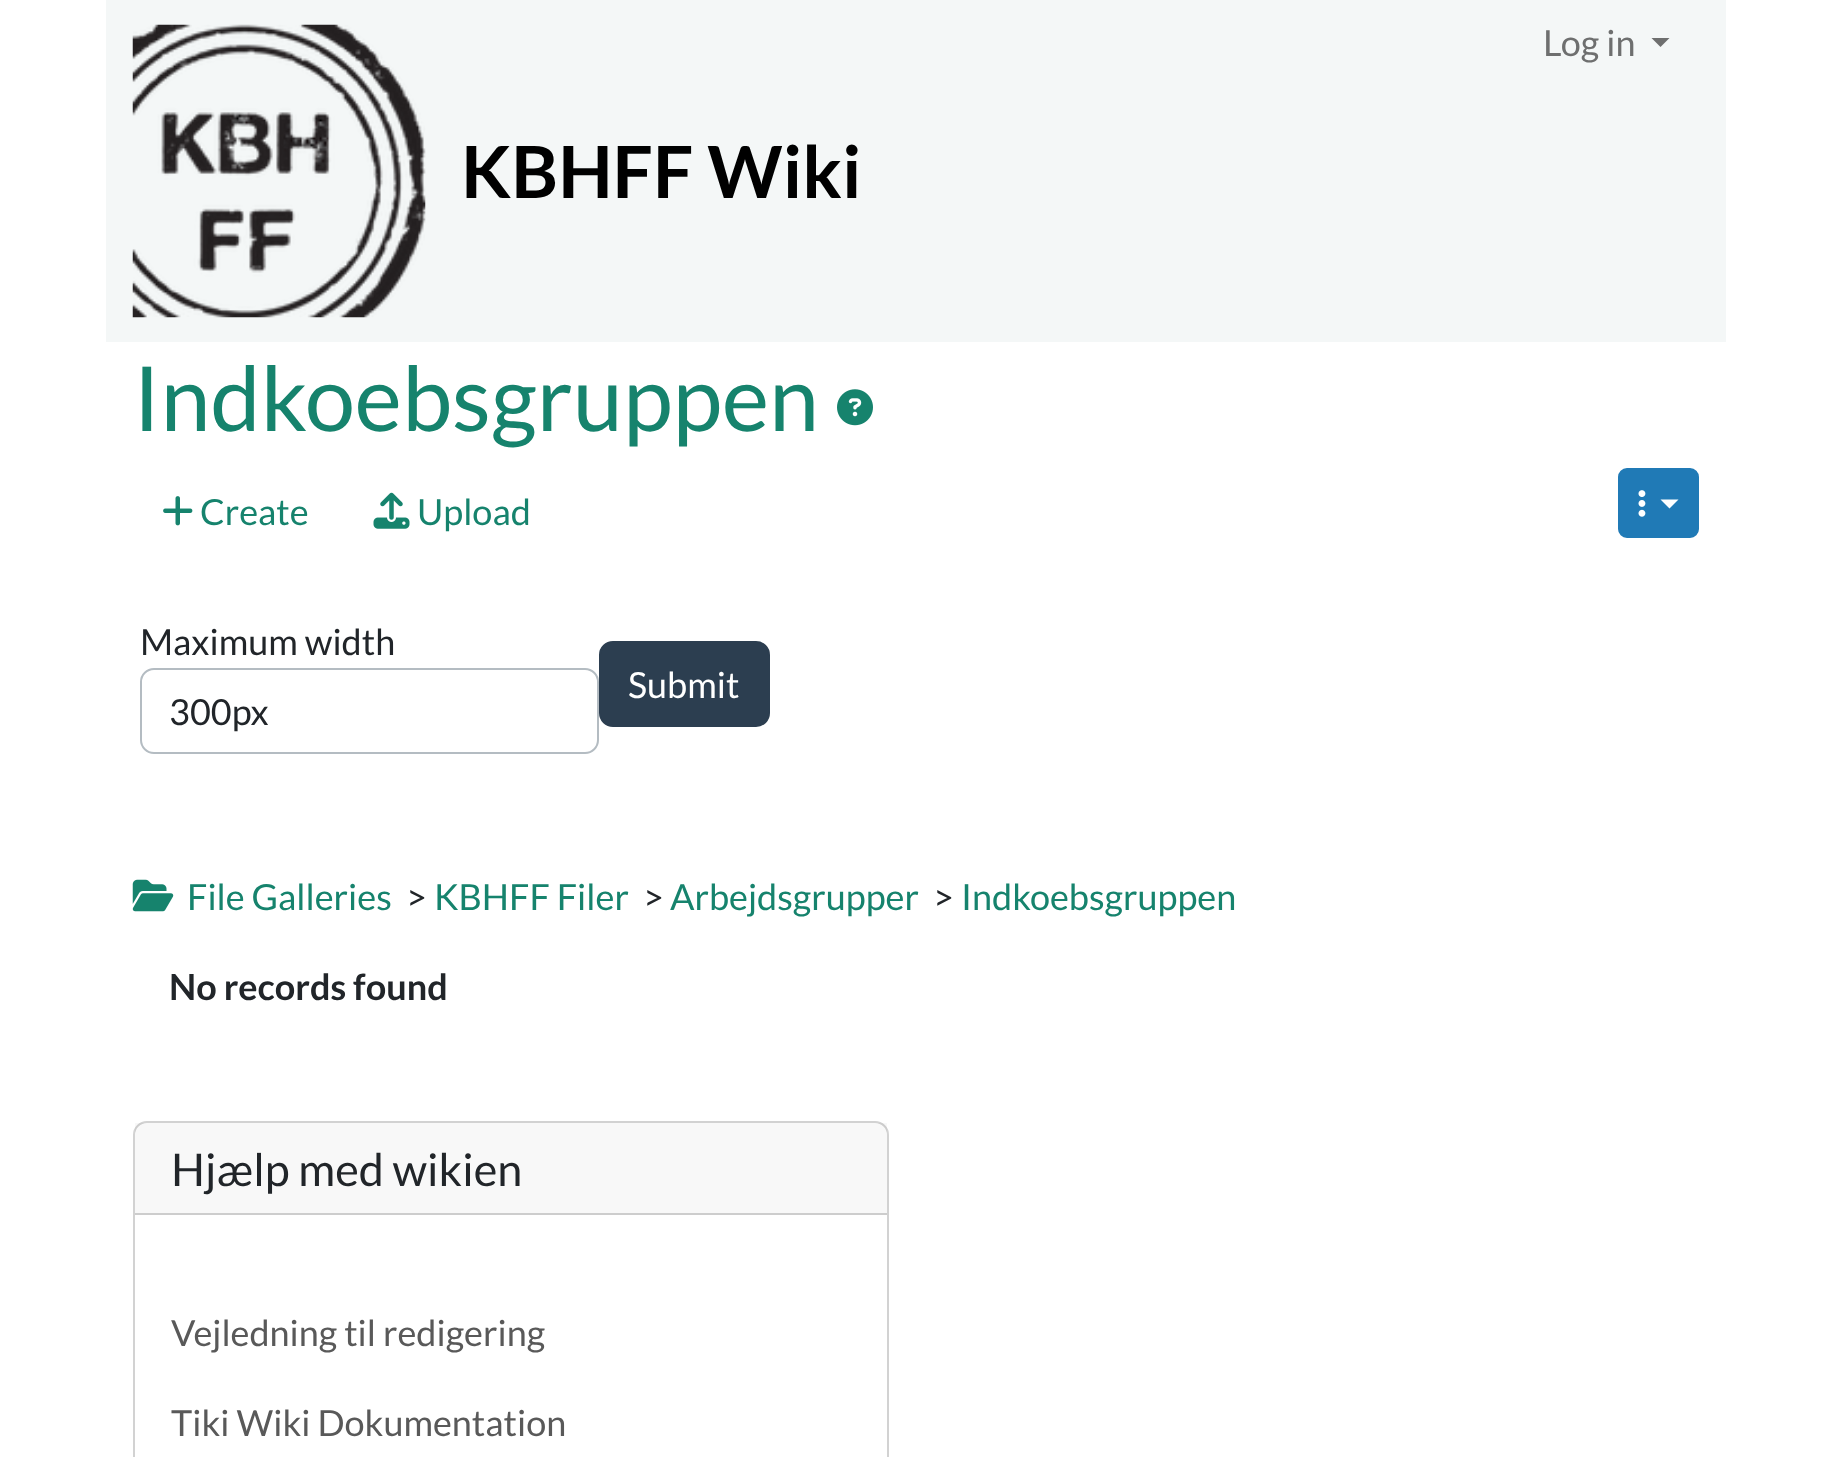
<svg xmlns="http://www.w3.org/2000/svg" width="1831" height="1457">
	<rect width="100%" height="100%" fill="#FFFFFF" />
	<rect x="106" y="0" width="1620" height="342" fill="#F4F7F7" />
	<text x="1543" y="56" font-family="Lato" font-size="36" fill="#6E6F6F">Log in</text>
	<path d="M1651.5 38H1669.5L1660.5 47Z" fill="#6E6F6F" />
	<image x="132" y="24" width="294" height="294" href="assets/img1.png" />
	<text x="461" y="198" font-family="Lato" font-size="72" font-weight="700" fill="#000000">KBHFF Wiki</text>
	<text x="133" y="431" font-family="Lato" font-size="89.75" fill="#16836D">Indkoebsgruppen</text>
	<image x="837" y="389" width="36" height="37" href="assets/img2.png" />
	<image x="163" y="496" width="30" height="30" href="assets/img3.png" />
	<text x="200" y="525" font-family="Lato" font-size="36" fill="#16836D">Create</text>
	<image x="373" y="492" width="37" height="37" href="assets/img4.png" />
	<text x="417" y="525" font-family="Lato" font-size="36" fill="#16836D">Upload</text>
	<rect x="1619" y="469" width="79" height="68" rx="8" fill="#207AB6" stroke="#207AB6" stroke-width="2" />
	<image x="1638" y="490" width="8" height="27" href="assets/img5.png" />
	<path d="M1660.5 499.5H1678.5L1669.5 508.5Z" fill="#FFFFFF" />
	<text x="140" y="655" font-family="Lato" font-size="36" fill="#212529">Maximum width</text>
	<rect x="141" y="669" width="457" height="84" rx="13" fill="none" stroke="#B4BCC2" stroke-width="2" />
	<text x="169" y="725" font-family="Lato" font-size="36" fill="#212529">300px</text>
	<rect x="600" y="642" width="169" height="84" rx="13" fill="#2C3E50" stroke="#2C3E50" stroke-width="2" />
	<text x="628" y="698" font-family="Lato" font-size="36" fill="#FFFFFF">Submit</text>
	<image x="132" y="879" width="42" height="33" href="assets/img6.png" />
	<text x="187" y="910" font-family="Lato" font-size="36" fill="#16836D">File Galleries</text>
	<text x="406" y="910" font-family="Lato" font-size="36" fill="#212529">&gt;</text>
	<text x="434" y="910" font-family="Lato" font-size="36" fill="#16836D">KBHFF Filer</text>
	<text x="643" y="910" font-family="Lato" font-size="36" fill="#212529">&gt;</text>
	<text x="670" y="910" font-family="Lato" font-size="36" fill="#16836D">Arbejdsgrupper</text>
	<text x="933" y="910" font-family="Lato" font-size="36" fill="#212529">&gt;</text>
	<text x="961" y="910" font-family="Lato" font-size="36" fill="#16836D">Indkoebsgruppen</text>
	<text x="169" y="1000" font-family="Lato" font-size="36" font-weight="700" fill="#212529">No records found</text>
	<rect x="134" y="1122" width="754" height="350" rx="13" fill="none" stroke="#D2D2D2" stroke-width="2" />
	<rect x="135" y="1123" width="752" height="90" fill="#212529" fill-opacity="0.03" />
	<rect x="135" y="1213" width="752" height="2" fill="#CDCDCD" />
	<text x="171" y="1186" font-family="Lato" font-size="45" fill="#212529">Hjælp med wikien</text>
	<g font-family="Lato" font-size="36" fill="#595959">
		<text x="171" y="1346">Vejledning til redigering</text>
		<text x="171" y="1436">Tiki Wiki Dokumentation</text>
	</g>
</svg>
